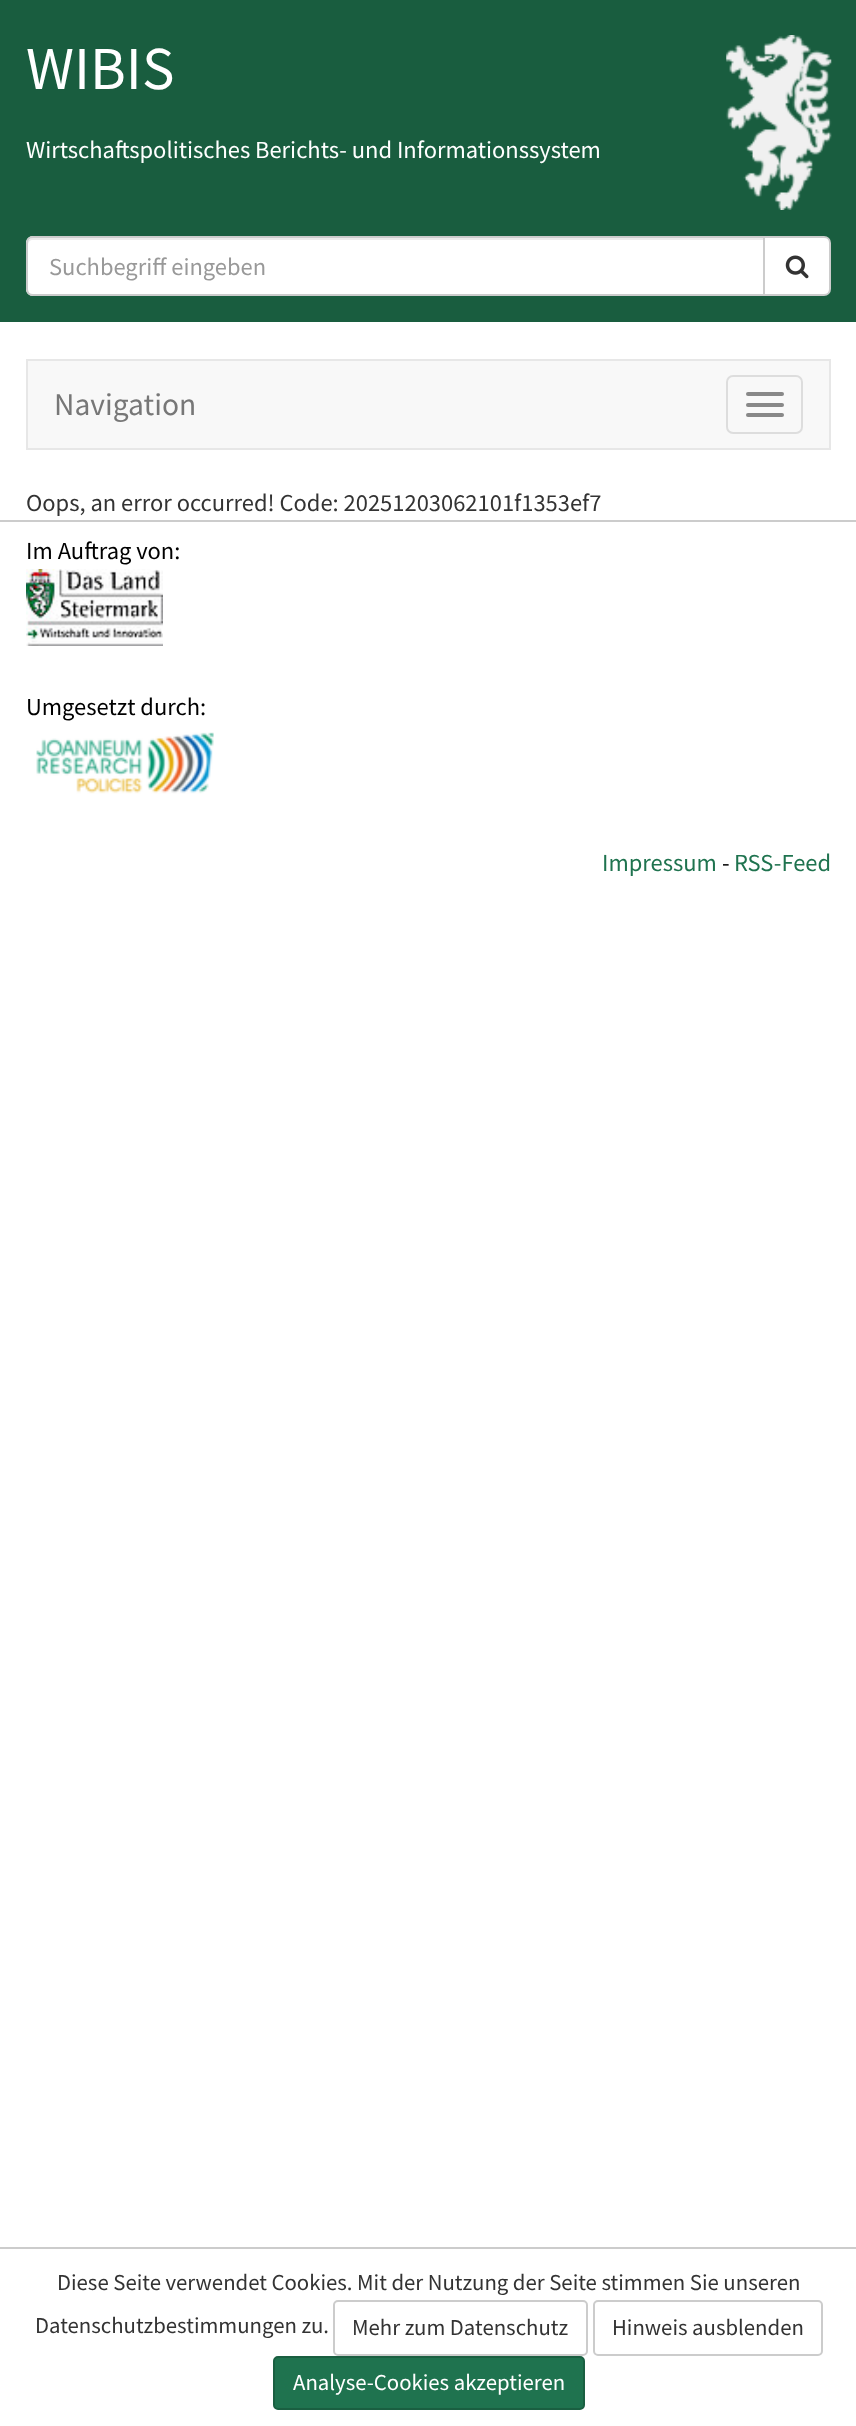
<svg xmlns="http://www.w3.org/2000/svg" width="856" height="2426">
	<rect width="100%" height="100%" fill="#FFFFFF" />
	<rect x="0" y="0" width="856" height="322" fill="#195D3F" />
	<image x="726" y="35" width="106" height="175" href="assets/img1.png" />
	<text x="26" y="89" font-family="Source Sans Pro" font-size="61" fill="#FFFFFF">WIBIS</text>
	<text x="26" y="158" font-family="Source Sans Pro" font-size="24.5" fill="#FFFFFF">Wirtschaftspolitisches Berichts- und Informationssystem</text>
	<path d="M33 236H765V296H33C29 296 26 293 26 289V243C26 239 29 236 33 236Z" fill="#FFFFFF" />
	<path d="M33 240H763V238H33C30 238 28 240 28 243V245C28 242 30 240 33 240Z" fill="#ECECEC" />
	<path d="M33 237H764V295H33C29.5 295 27 292.5 27 289V243C27 239.5 29.5 237 33 237Z" fill="none" stroke="#CCCCCC" stroke-width="2" />
	<text x="49" y="275" font-family="Source Sans Pro" font-size="24.5" fill="#999999">Suchbegriff eingeben</text>
	<path d="M764 237H824C827.5 237 830 239.5 830 243V289C830 292.5 827.5 295 824 295H764Z" fill="#FFFFFF" stroke="#CCCCCC" stroke-width="2" />
	<image x="785" y="255" width="24" height="24" href="assets/img2.png" />
	<rect x="27" y="360" width="803" height="89" fill="#F8F8F8" stroke="#E7E7E7" stroke-width="2" />
	<text x="54" y="415" font-family="Source Sans Pro" font-size="31.5" fill="#777777">Navigation</text>
	<rect x="727" y="376" width="75" height="57" rx="6" fill="none" stroke="#DDDDDD" stroke-width="2" />
	<rect x="746" y="392" width="38" height="4" rx="2" fill="#888888" />
	<rect x="746" y="403" width="38" height="4" rx="2" fill="#888888" />
	<rect x="746" y="413" width="38" height="4" rx="2" fill="#888888" />
	<text x="26" y="511" font-family="Source Sans Pro" font-size="24.5" fill="#333333">Oops, an error occurred! Code: 20251203062101f1353ef7</text>
	<rect x="0" y="520" width="856" height="2" fill="#CCCCCC" />
	<text x="26" y="559" font-family="Source Sans Pro" font-size="24.5" fill="#000000">Im Auftrag von:</text>
	<image x="26" y="569" width="137" height="77" href="assets/img3.png" />
	<text x="26" y="715" font-family="Source Sans Pro" font-size="24.5" fill="#000000">Umgesetzt durch:</text>
	<image x="36" y="732" width="178" height="62" href="assets/img4.png" />
	<text x="602" y="871" font-family="Source Sans Pro" font-size="24.5" fill="#1F734F">Impressum</text>
	<text x="722" y="871" font-family="Source Sans Pro" font-size="24.5" fill="#000000">-</text>
	<text x="734" y="871" font-family="Source Sans Pro" font-size="24.5" fill="#1F734F">RSS-Feed</text>
	<rect x="0" y="2247" width="856" height="2" fill="#CCCCCC" />
	<g font-family="Source Sans Pro" font-size="22.75" fill="#333333">
		<text x="57" y="2290">Diese Seite verwendet Cookies. Mit der Nutzung der Seite stimmen Sie unseren</text>
		<text x="35" y="2333">Datenschutzbestimmungen zu.</text>
	</g>
	<rect x="334" y="2301" width="253" height="54" rx="4" fill="none" stroke="#CCCCCC" stroke-width="2" />
	<text x="352" y="2335" font-family="Source Sans Pro" font-size="22.75" fill="#333333">Mehr zum Datenschutz</text>
	<rect x="594" y="2301" width="228" height="54" rx="4" fill="none" stroke="#CCCCCC" stroke-width="2" />
	<text x="612" y="2335" font-family="Source Sans Pro" font-size="22.75" fill="#333333">Hinweis ausblenden</text>
	<rect x="274" y="2357" width="310" height="52" rx="4" fill="#1F734F" stroke="#1A5F41" stroke-width="2" />
	<text x="293" y="2390" font-family="Source Sans Pro" font-size="22.75" fill="#FFFFFF">Analyse-Cookies akzeptieren</text>
</svg>
